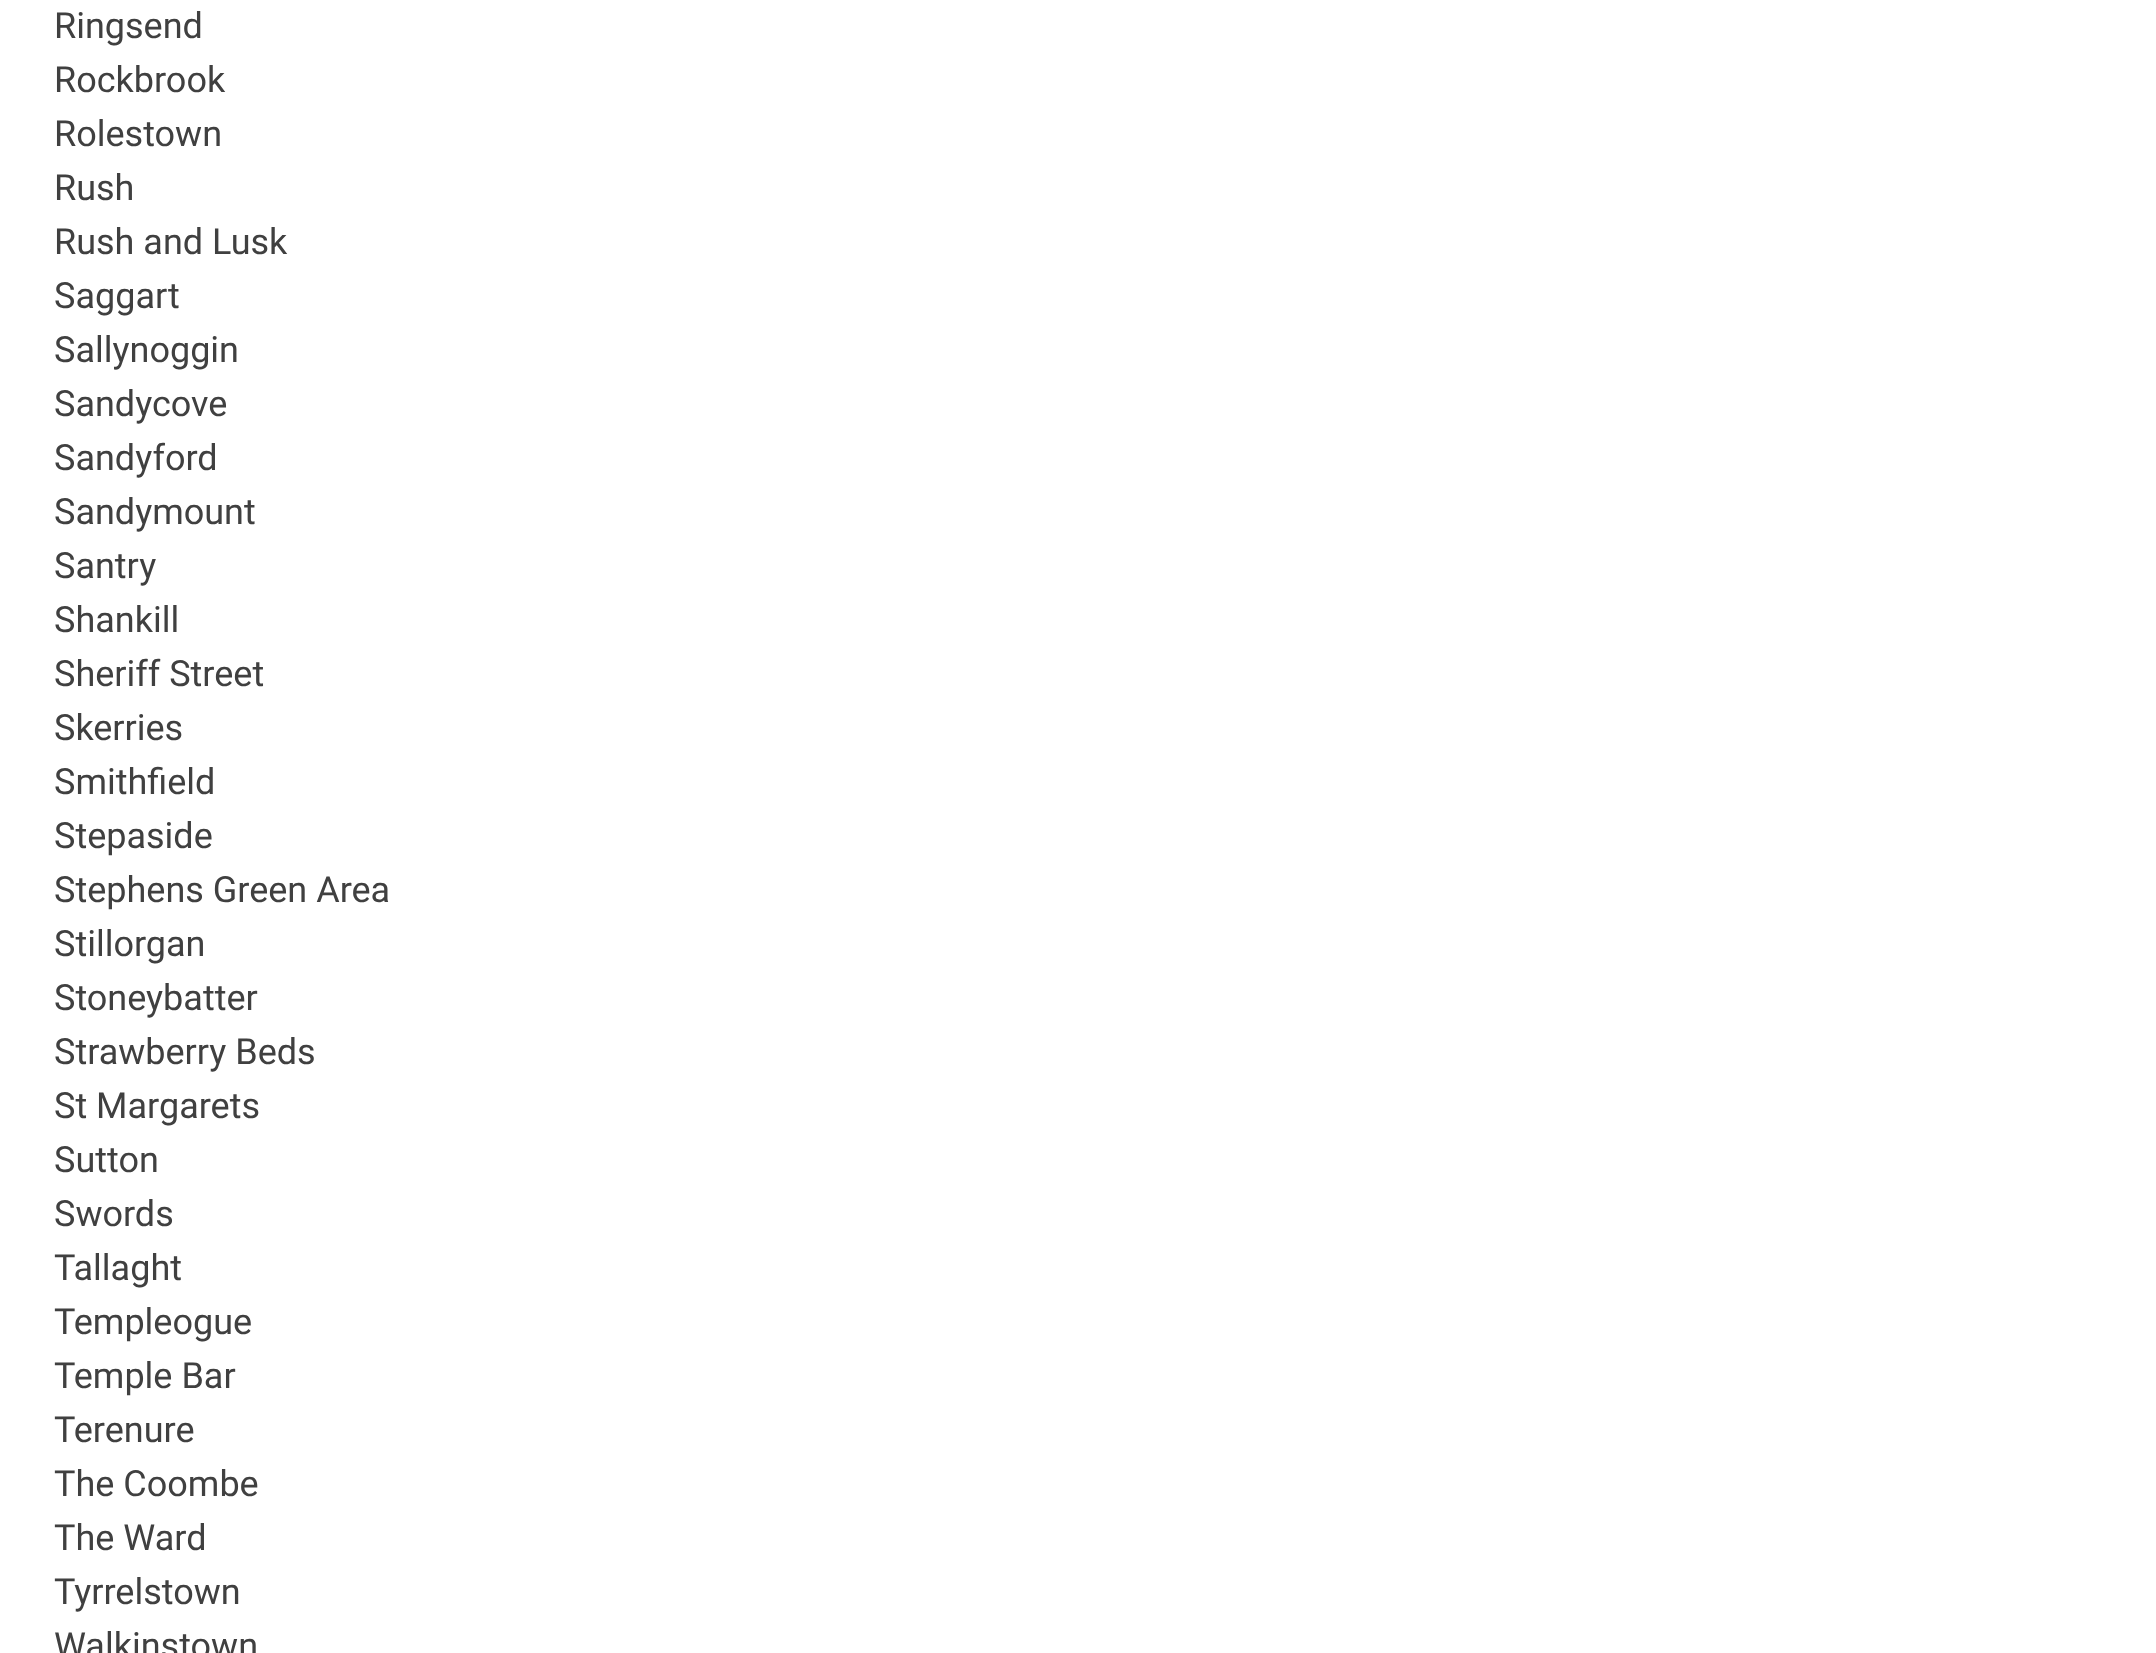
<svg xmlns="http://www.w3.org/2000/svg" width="2156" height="1653">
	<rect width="100%" height="100%" fill="#FFFFFF" />
	<g font-family="Roboto" font-size="36" fill="#404040">
		<text x="54" y="38">Ringsend</text>
		<text x="54" y="92">Rockbrook</text>
		<text x="54" y="146">Rolestown</text>
		<text x="54" y="200">Rush</text>
		<text x="54" y="254">Rush and Lusk</text>
		<text x="54" y="308">Saggart</text>
		<text x="54" y="362">Sallynoggin</text>
		<text x="54" y="416">Sandycove</text>
		<text x="54" y="470">Sandyford</text>
		<text x="54" y="524">Sandymount</text>
		<text x="54" y="578">Santry</text>
		<text x="54" y="632">Shankill</text>
		<text x="54" y="686">Sheriff Street</text>
		<text x="54" y="740">Skerries</text>
		<text x="54" y="794">Smithfield</text>
		<text x="54" y="848">Stepaside</text>
		<text x="54" y="902">Stephens Green Area</text>
		<text x="54" y="956">Stillorgan</text>
		<text x="54" y="1010">Stoneybatter</text>
		<text x="54" y="1064">Strawberry Beds</text>
		<text x="54" y="1118">St Margarets</text>
		<text x="54" y="1172">Sutton</text>
		<text x="54" y="1226">Swords</text>
		<text x="54" y="1280">Tallaght</text>
		<text x="54" y="1334">Templeogue</text>
		<text x="54" y="1388">Temple Bar</text>
		<text x="54" y="1442">Terenure</text>
		<text x="54" y="1496">The Coombe</text>
		<text x="54" y="1550">The Ward</text>
		<text x="54" y="1604">Tyrrelstown</text>
		<text x="54" y="1658">Walkinstown</text>
	</g>
</svg>
